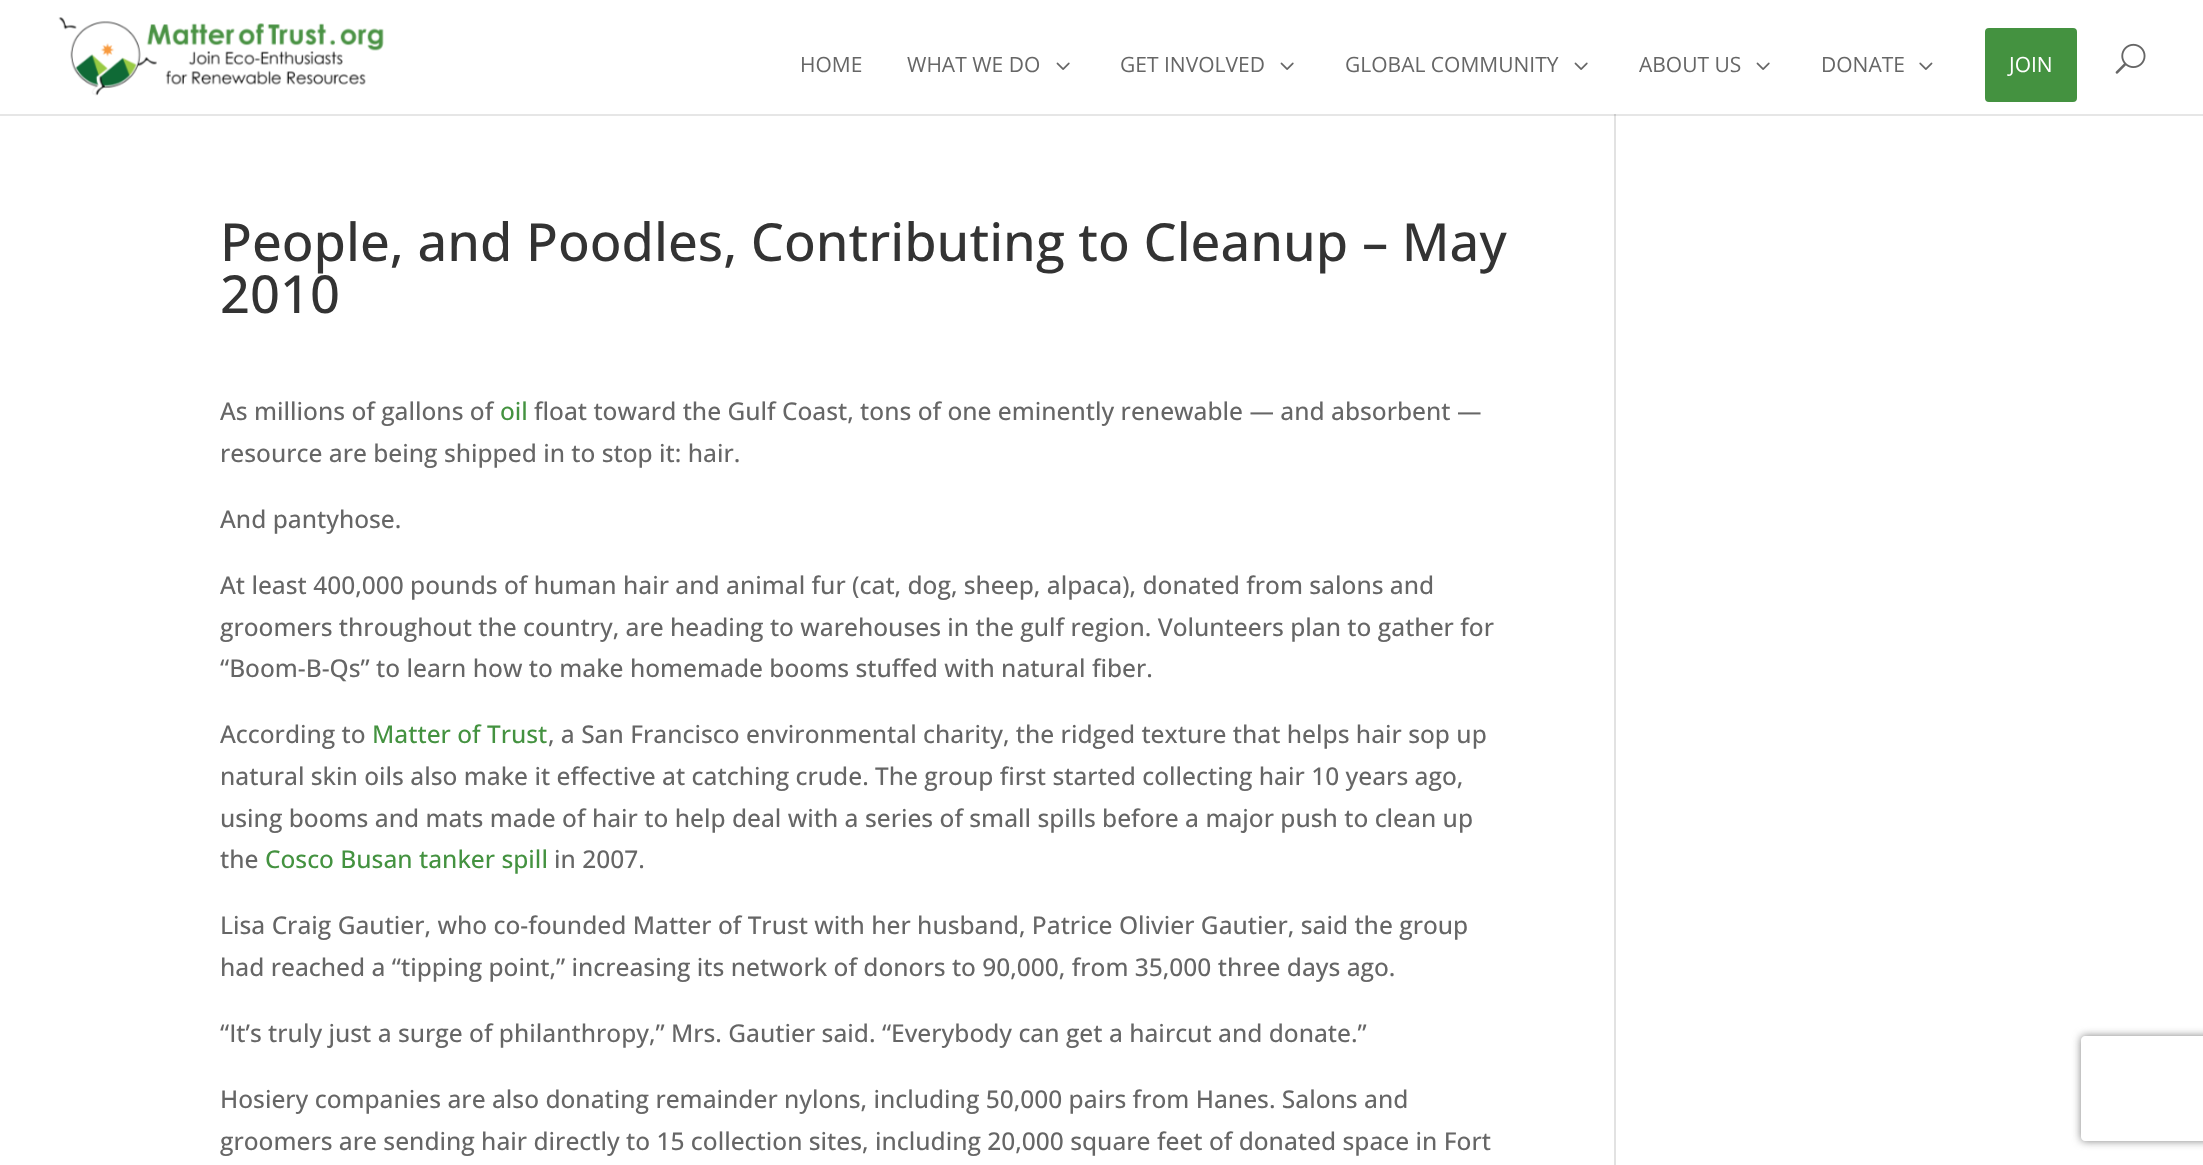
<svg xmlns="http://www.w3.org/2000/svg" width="2203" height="1165">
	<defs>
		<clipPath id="clip1"><path d="M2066 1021H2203V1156H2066ZM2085 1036H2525C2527 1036 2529 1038 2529 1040V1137C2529 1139 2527 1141 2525 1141H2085C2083 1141 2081 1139 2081 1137V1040C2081 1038 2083 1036 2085 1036Z" clip-rule="evenodd" /></clipPath>
	</defs>
	<rect width="100%" height="100%" fill="#FFFFFF" />
	<rect x="0" y="114" width="2203" height="2" fill="#E6E6E6" />
	<image x="58" y="17" width="326" height="79" href="assets/img1.png" />
	<g font-family="Open Sans" font-size="21" fill="#666666">
		<text x="800" y="72">HOME</text>
		<text x="907" y="72">WHAT WE DO</text>
	</g>
	<image x="1056" y="62" width="14" height="8" href="assets/img2.png" />
	<text x="1120" y="72" font-family="Open Sans" font-size="21" fill="#666666">GET INVOLVED</text>
	<image x="1280" y="62" width="14" height="8" href="assets/img2.png" />
	<text x="1345" y="72" font-family="Open Sans" font-size="21" fill="#666666">GLOBAL COMMUNITY</text>
	<image x="1574" y="62" width="14" height="8" href="assets/img2.png" />
	<text x="1639" y="72" font-family="Open Sans" font-size="21" fill="#666666">ABOUT US</text>
	<image x="1756" y="62" width="14" height="8" href="assets/img2.png" />
	<text x="1821" y="72" font-family="Open Sans" font-size="21" fill="#666666">DONATE</text>
	<image x="1919" y="62" width="14" height="8" href="assets/img3.png" />
	<rect x="1987" y="30" width="88" height="70" rx="2" fill="#449240" stroke="#449240" stroke-width="4" />
	<text x="2009" y="72" font-family="Open Sans" font-size="21" fill="#FFFFFF">JOIN</text>
	<image x="2115" y="43" width="31" height="31" href="assets/img4.png" />
	<g font-family="Open Sans" font-size="52.5" font-weight="500" fill="#333333">
		<text x="220" y="261">People, and Poodles, Contributing to Cleanup – May</text>
		<text x="220" y="313">2010</text>
	</g>
	<text x="220" y="420" font-family="Open Sans" font-size="24.5" font-weight="500" fill="#666666">As millions of gallons of</text>
	<text x="500" y="420" font-family="Open Sans" font-size="24.5" font-weight="500" fill="#449240">oil</text>
	<g font-family="Open Sans" font-size="24.5" font-weight="500" fill="#666666">
		<text x="534" y="420">float toward the Gulf Coast, tons of one eminently renewable — and absorbent —</text>
		<text x="220" y="462">resource are being shipped in to stop it: hair.</text>
		<text x="220" y="528">And pantyhose.</text>
		<text x="220" y="594">At least 400,000 pounds of human hair and animal fur (cat, dog, sheep, alpaca), donated from salons and</text>
		<text x="220" y="636">groomers throughout the country, are heading to warehouses in the gulf region. Volunteers plan to gather for</text>
		<text x="220" y="677">“Boom-B-Qs” to learn how to make homemade booms stuffed with natural fiber.</text>
		<text x="220" y="743">According to</text>
	</g>
	<text x="372" y="743" font-family="Open Sans" font-size="24.5" font-weight="500" fill="#449240">Matter of Trust</text>
	<g font-family="Open Sans" font-size="24.5" font-weight="500" fill="#666666">
		<text x="548" y="743">, a San Francisco environmental charity, the ridged texture that helps hair sop up</text>
		<text x="220" y="785">natural skin oils also make it effective at catching crude. The group first started collecting hair 10 years ago,</text>
		<text x="220" y="827">using booms and mats made of hair to help deal with a series of small spills before a major push to clean up</text>
		<text x="220" y="868">the</text>
	</g>
	<text x="265" y="868" font-family="Open Sans" font-size="24.5" font-weight="500" fill="#449240">Cosco Busan tanker spill</text>
	<g font-family="Open Sans" font-size="24.5" font-weight="500" fill="#666666">
		<text x="554" y="868">in 2007.</text>
		<text x="220" y="934">Lisa Craig Gautier, who co-founded Matter of Trust with her husband, Patrice Olivier Gautier, said the group</text>
		<text x="220" y="976">had reached a “tipping point,” increasing its network of donors to 90,000, from 35,000 three days ago.</text>
		<text x="220" y="1042">“It’s truly just a surge of philanthropy,” Mrs. Gautier said. “Everybody can get a haircut and donate.”</text>
		<text x="220" y="1108">Hosiery companies are also donating remainder nylons, including 50,000 pairs from Hanes. Salons and</text>
		<text x="220" y="1150">groomers are sending hair directly to 15 collection sites, including 20,000 square feet of donated space in Fort</text>
	</g>
	<rect x="1614" y="114" width="2" height="1051" fill="#E2E2E2" />
	<rect x="1614" y="114" width="2" height="2" fill="#CBCBCB" />
	<g clip-path="url(#clip1)">
		<rect x="2081" y="1036" width="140" height="105" rx="4" fill="#808080" filter="blur(4.5px)" />
	</g>
</svg>
